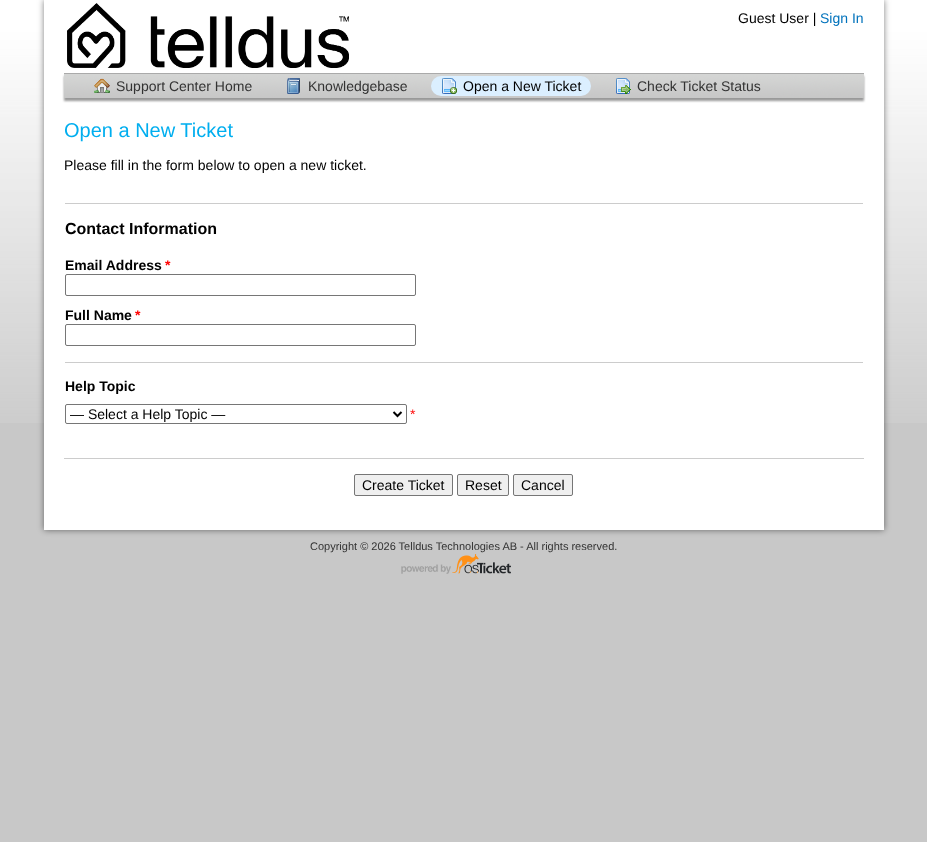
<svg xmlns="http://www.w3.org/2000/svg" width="927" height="842">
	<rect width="100%" height="100%" fill="#C8C8C8" />
	<image x="0" y="0" width="927" height="423" href="assets/img1.png" />
	<rect x="44" y="0" width="840" height="530" fill="#000000" fill-opacity="0.5" filter="blur(3px)" />
	<rect x="44" y="0" width="840" height="530" fill="#FFFFFF" />
	<image x="67" y="3" width="282" height="65" href="assets/img2.png" />
	<text x="738" y="23" font-family="Liberation Sans" font-size="14" fill="#000000">Guest User |</text>
	<text x="820" y="23" font-family="Liberation Sans" font-size="14" fill="#0072BC">Sign In</text>
	<rect x="64" y="76" width="800" height="25" fill="#000000" fill-opacity="0.4" filter="blur(1px)" />
	<image x="64" y="74" width="800" height="24" href="assets/img3.png" />
	<rect x="64" y="73" width="800" height="1" fill="#AAAAAA" />
	<image x="94" y="78" width="16" height="15" href="assets/img4.png" />
	<text x="116" y="91" font-family="Liberation Sans" font-size="14" fill="#333333">Support Center Home</text>
	<image x="287" y="78" width="13" height="16" href="assets/img5.png" />
	<text x="308" y="91" font-family="Liberation Sans" font-size="14" fill="#333333">Knowledgebase</text>
	<rect x="431" y="76" width="160" height="20" rx="10" fill="#DBEFFF" />
	<image x="442" y="78" width="15" height="16" href="assets/img6.png" />
	<text x="463" y="91" font-family="Liberation Sans" font-size="14" fill="#000000">Open a New Ticket</text>
	<image x="616" y="78" width="15" height="16" href="assets/img7.png" />
	<text x="637" y="91" font-family="Liberation Sans" font-size="14" fill="#333333">Check Ticket Status</text>
	<text x="64" y="137" font-family="Liberation Sans" font-size="20" fill="#00AEEF">Open a New Ticket</text>
	<text x="64" y="170" font-family="Liberation Sans" font-size="14" fill="#000000">Please fill in the form below to open a new ticket.</text>
	<rect x="65" y="203" width="798" height="1" fill="#CCCCCC" />
	<text x="65" y="234" font-family="Liberation Sans" font-size="16" font-weight="700" fill="#000000">Contact Information</text>
	<text x="65" y="270" font-family="Liberation Sans" font-size="14" font-weight="700" fill="#000000">Email Address</text>
	<text x="165" y="270" font-family="Liberation Sans" font-size="14" font-weight="700" fill="#FF0000">*</text>
	<rect x="65.5" y="274.5" width="350" height="21" rx="1.5" fill="none" stroke="#767676" />
	<text x="65" y="320" font-family="Liberation Sans" font-size="14" font-weight="700" fill="#000000">Full Name</text>
	<text x="135" y="320" font-family="Liberation Sans" font-size="14" font-weight="700" fill="#FF0000">*</text>
	<rect x="65.5" y="324.5" width="350" height="21" rx="1.5" fill="none" stroke="#767676" />
	<rect x="65" y="362" width="798" height="1" fill="#CCCCCC" />
	<text x="65" y="391" font-family="Liberation Sans" font-size="14" font-weight="700" fill="#000000">Help Topic</text>
	<rect x="65.5" y="404.5" width="341" height="19" rx="1.5" fill="none" stroke="#767676" />
	<path d="M393.5 412L397.5 416L401.5 412" fill="none" stroke="#000000" stroke-width="2" />
	<text x="70" y="419" font-family="Liberation Sans" font-size="14" fill="#000000">— Select a Help Topic —</text>
	<text x="410" y="419" font-family="Liberation Sans" font-size="14" fill="#FF0000">*</text>
	<rect x="64" y="458" width="800" height="1" fill="#CCCCCC" />
	<rect x="354.5" y="474.5" width="98" height="21" rx="1.5" fill="#EFEFEF" stroke="#767676" />
	<text x="362" y="490" font-family="Liberation Sans" font-size="14" fill="#000000">Create Ticket</text>
	<rect x="457.5" y="474.5" width="51" height="21" rx="1.5" fill="#EFEFEF" stroke="#767676" />
	<text x="465" y="490" font-family="Liberation Sans" font-size="14" fill="#000000">Reset</text>
	<rect x="513.5" y="474.5" width="59" height="21" rx="1.5" fill="#EFEFEF" stroke="#767676" />
	<text x="521" y="490" font-family="Liberation Sans" font-size="14" fill="#000000">Cancel</text>
	<text x="310" y="550" font-family="Liberation Sans" font-size="11" fill="#333333">Copyright © 2026 Telldus Technologies AB - All rights reserved.</text>
	<image x="401" y="554" width="110" height="20" href="assets/img8.png" />
</svg>
